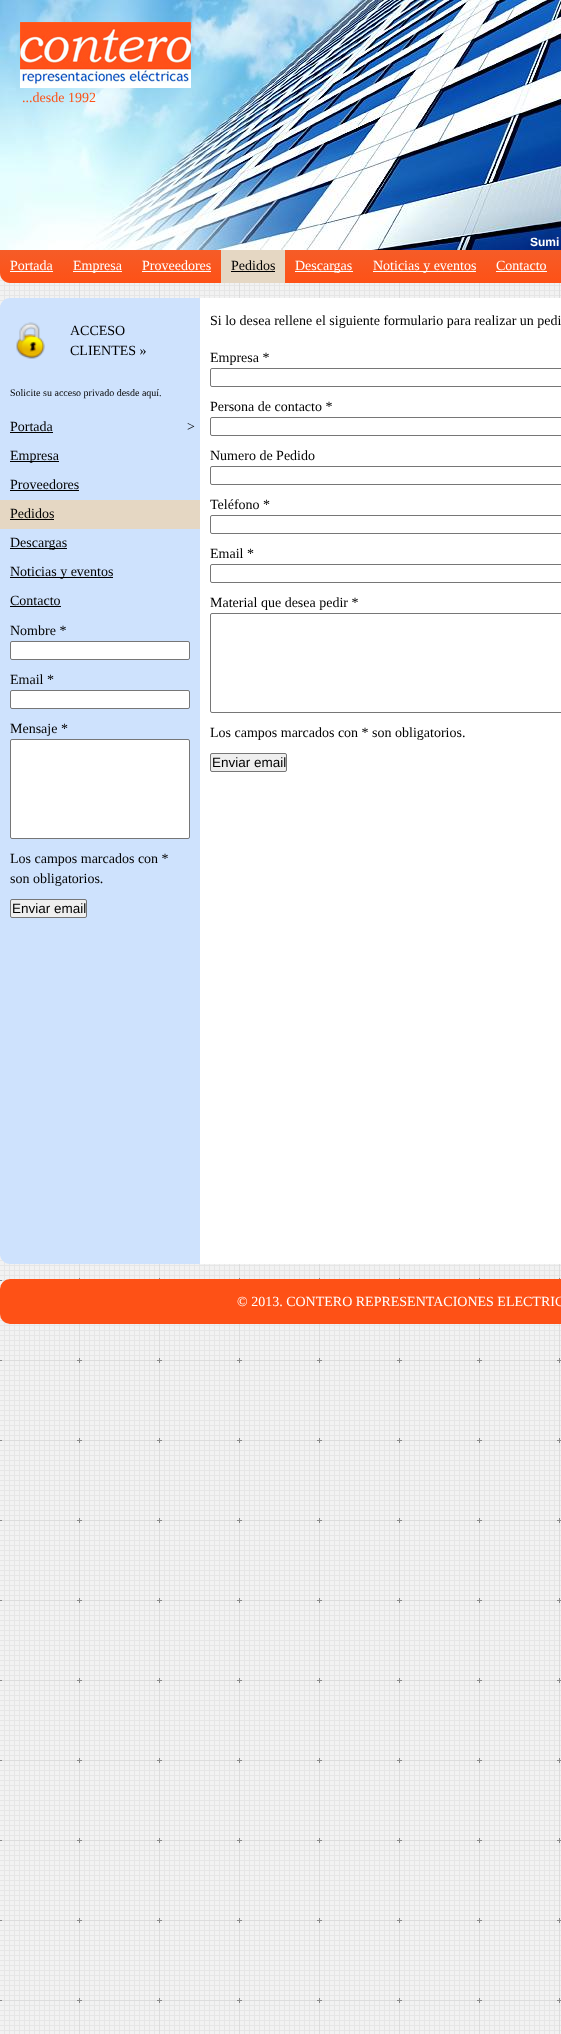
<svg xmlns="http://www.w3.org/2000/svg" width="561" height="2034">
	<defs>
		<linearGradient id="g1" gradientUnits="userSpaceOnUse" x1="512" y1="0" x2="512" y2="283"><stop offset="0" stop-color="#B1B1B1" /><stop offset="1" stop-color="#FE5116" /></linearGradient>
	</defs>
	<rect width="100%" height="100%" fill="#FFFFFF" />
	<image x="0" y="273" width="561" height="1761" href="assets/img1.png" />
	<path d="M0 0H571V283H10C4.5 283 0 278.5 0 273Z" fill="url(#g1)" />
	<image x="0" y="0" width="561" height="250" href="assets/img2.png" />
	<image x="20" y="22" width="171" height="66" href="assets/img3.png" />
	<text x="22" y="102" font-family="Liberation Serif" font-size="14" fill="#FE5116">...desde 1992</text>
	<text x="530" y="246" font-family="Liberation Sans" font-size="12" font-weight="700" fill="#FFFFFF">Sumi</text>
	<text x="10" y="270" font-family="Liberation Serif" font-size="14" fill="#FFFFFF">Portada</text>
	<rect x="10" y="271" width="43" height="1" fill="#FFFFFF" />
	<rect x="73" y="271" width="49" height="1" fill="#FFFFFF" />
	<g font-family="Liberation Serif" font-size="14" fill="#FFFFFF">
		<text x="73" y="270">Empresa</text>
		<text x="142" y="270">Proveedores</text>
	</g>
	<rect x="142" y="271" width="69" height="1" fill="#FFFFFF" />
	<rect x="221" y="250" width="64" height="33" fill="#E5D7C3" />
	<text x="231" y="270" font-family="Liberation Serif" font-size="14" fill="#000000">Pedidos</text>
	<rect x="231" y="271" width="44" height="1" fill="#000000" />
	<rect x="295" y="271" width="58" height="1" fill="#FFFFFF" />
	<text x="295" y="270" font-family="Liberation Serif" font-size="14" fill="#FFFFFF">Descargas</text>
	<rect x="373" y="271" width="103" height="1" fill="#FFFFFF" />
	<g font-family="Liberation Serif" font-size="14" fill="#FFFFFF">
		<text x="373" y="270">Noticias y eventos</text>
		<text x="496" y="270">Contacto</text>
	</g>
	<rect x="496" y="271" width="51" height="1" fill="#FFFFFF" />
	<path d="M10 298H200V1264H10C4.5 1264 0 1259.5 0 1254V308C0 302.5 4.5 298 10 298Z" fill="#CEE2FD" />
	<image x="16" y="322" width="29" height="37" href="assets/img4.png" />
	<g font-family="Liberation Serif" font-size="14" fill="#000000">
		<text x="70" y="335">ACCESO</text>
		<text x="70" y="355">CLIENTES »</text>
	</g>
	<text x="10" y="396" font-family="Liberation Serif" font-size="10" fill="#000000">Solicite su acceso privado desde aquí.</text>
	<text x="10" y="431" font-family="Liberation Serif" font-size="14" fill="#000000">Portada</text>
	<rect x="10" y="432" width="43" height="1" fill="#000000" />
	<text x="187" y="431" font-family="Liberation Serif" font-size="14" fill="#000000">&gt;</text>
	<rect x="10" y="461" width="49" height="1" fill="#000000" />
	<g font-family="Liberation Serif" font-size="14" fill="#000000">
		<text x="10" y="460">Empresa</text>
		<text x="10" y="489">Proveedores</text>
	</g>
	<rect x="10" y="490" width="69" height="1" fill="#000000" />
	<rect x="0" y="500" width="200" height="29" fill="#E5D7C3" />
	<text x="10" y="518" font-family="Liberation Serif" font-size="14" fill="#000000">Pedidos</text>
	<rect x="10" y="519" width="44" height="1" fill="#000000" />
	<rect x="10" y="548" width="57" height="1" fill="#000000" />
	<text x="10" y="547" font-family="Liberation Serif" font-size="14" fill="#000000">Descargas</text>
	<rect x="10" y="577" width="103" height="1" fill="#000000" />
	<g font-family="Liberation Serif" font-size="14" fill="#000000">
		<text x="10" y="576">Noticias y eventos</text>
		<text x="10" y="605">Contacto</text>
	</g>
	<rect x="10" y="606" width="51" height="1" fill="#000000" />
	<text x="10" y="635" font-family="Liberation Serif" font-size="14" fill="#000000">Nombre *</text>
	<rect x="10.5" y="641.5" width="179" height="18" rx="1.5" fill="#FFFFFF" stroke="#767676" />
	<text x="10" y="684" font-family="Liberation Serif" font-size="14" fill="#000000">Email *</text>
	<rect x="10.5" y="690.5" width="179" height="18" rx="1.5" fill="#FFFFFF" stroke="#767676" />
	<text x="10" y="733" font-family="Liberation Serif" font-size="14" fill="#000000">Mensaje *</text>
	<rect x="10.5" y="739.5" width="179" height="99" rx="1.5" fill="#FFFFFF" stroke="#767676" />
	<g font-family="Liberation Serif" font-size="14" fill="#000000">
		<text x="10" y="863">Los campos marcados con *</text>
		<text x="10" y="883">son obligatorios.</text>
	</g>
	<rect x="10.5" y="899.5" width="76" height="18" rx="1.5" fill="#EFEFEF" stroke="#767676" />
	<text x="12" y="913" font-family="Liberation Sans" font-size="13.5" fill="#000000">Enviar email</text>
	<rect x="200" y="298" width="361" height="966" fill="#FFFFFF" />
	<g font-family="Liberation Serif" font-size="14" fill="#000000">
		<text x="210" y="325">Si lo desea rellene el siguiente formulario para realizar un pedi</text>
		<text x="210" y="362">Empresa *</text>
	</g>
	<rect x="210.5" y="368.5" width="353" height="18" rx="1.5" fill="none" stroke="#767676" />
	<text x="210" y="411" font-family="Liberation Serif" font-size="14" fill="#000000">Persona de contacto *</text>
	<rect x="210.5" y="417.5" width="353" height="18" rx="1.5" fill="none" stroke="#767676" />
	<text x="210" y="460" font-family="Liberation Serif" font-size="14" fill="#000000">Numero de Pedido</text>
	<rect x="210.5" y="466.5" width="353" height="18" rx="1.5" fill="none" stroke="#767676" />
	<text x="210" y="509" font-family="Liberation Serif" font-size="14" fill="#000000">Teléfono *</text>
	<rect x="210.5" y="515.5" width="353" height="18" rx="1.5" fill="none" stroke="#767676" />
	<text x="210" y="558" font-family="Liberation Serif" font-size="14" fill="#000000">Email *</text>
	<rect x="210.5" y="564.5" width="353" height="18" rx="1.5" fill="none" stroke="#767676" />
	<text x="210" y="607" font-family="Liberation Serif" font-size="14" fill="#000000">Material que desea pedir *</text>
	<rect x="210.5" y="613.5" width="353" height="99" rx="1.5" fill="none" stroke="#767676" />
	<text x="210" y="737" font-family="Liberation Serif" font-size="14" fill="#000000">Los campos marcados con * son obligatorios.</text>
	<rect x="210.5" y="753.5" width="76" height="18" rx="1.5" fill="#EFEFEF" stroke="#767676" />
	<text x="212" y="767" font-family="Liberation Sans" font-size="13.5" fill="#000000">Enviar email</text>
	<rect x="0" y="1279" width="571" height="45" rx="10" fill="#FE5116" />
	<text x="237" y="1306" font-family="Liberation Serif" font-size="14" fill="#FFFFFF">© 2013. CONTERO REPRESENTACIONES ELECTRIC</text>
</svg>
